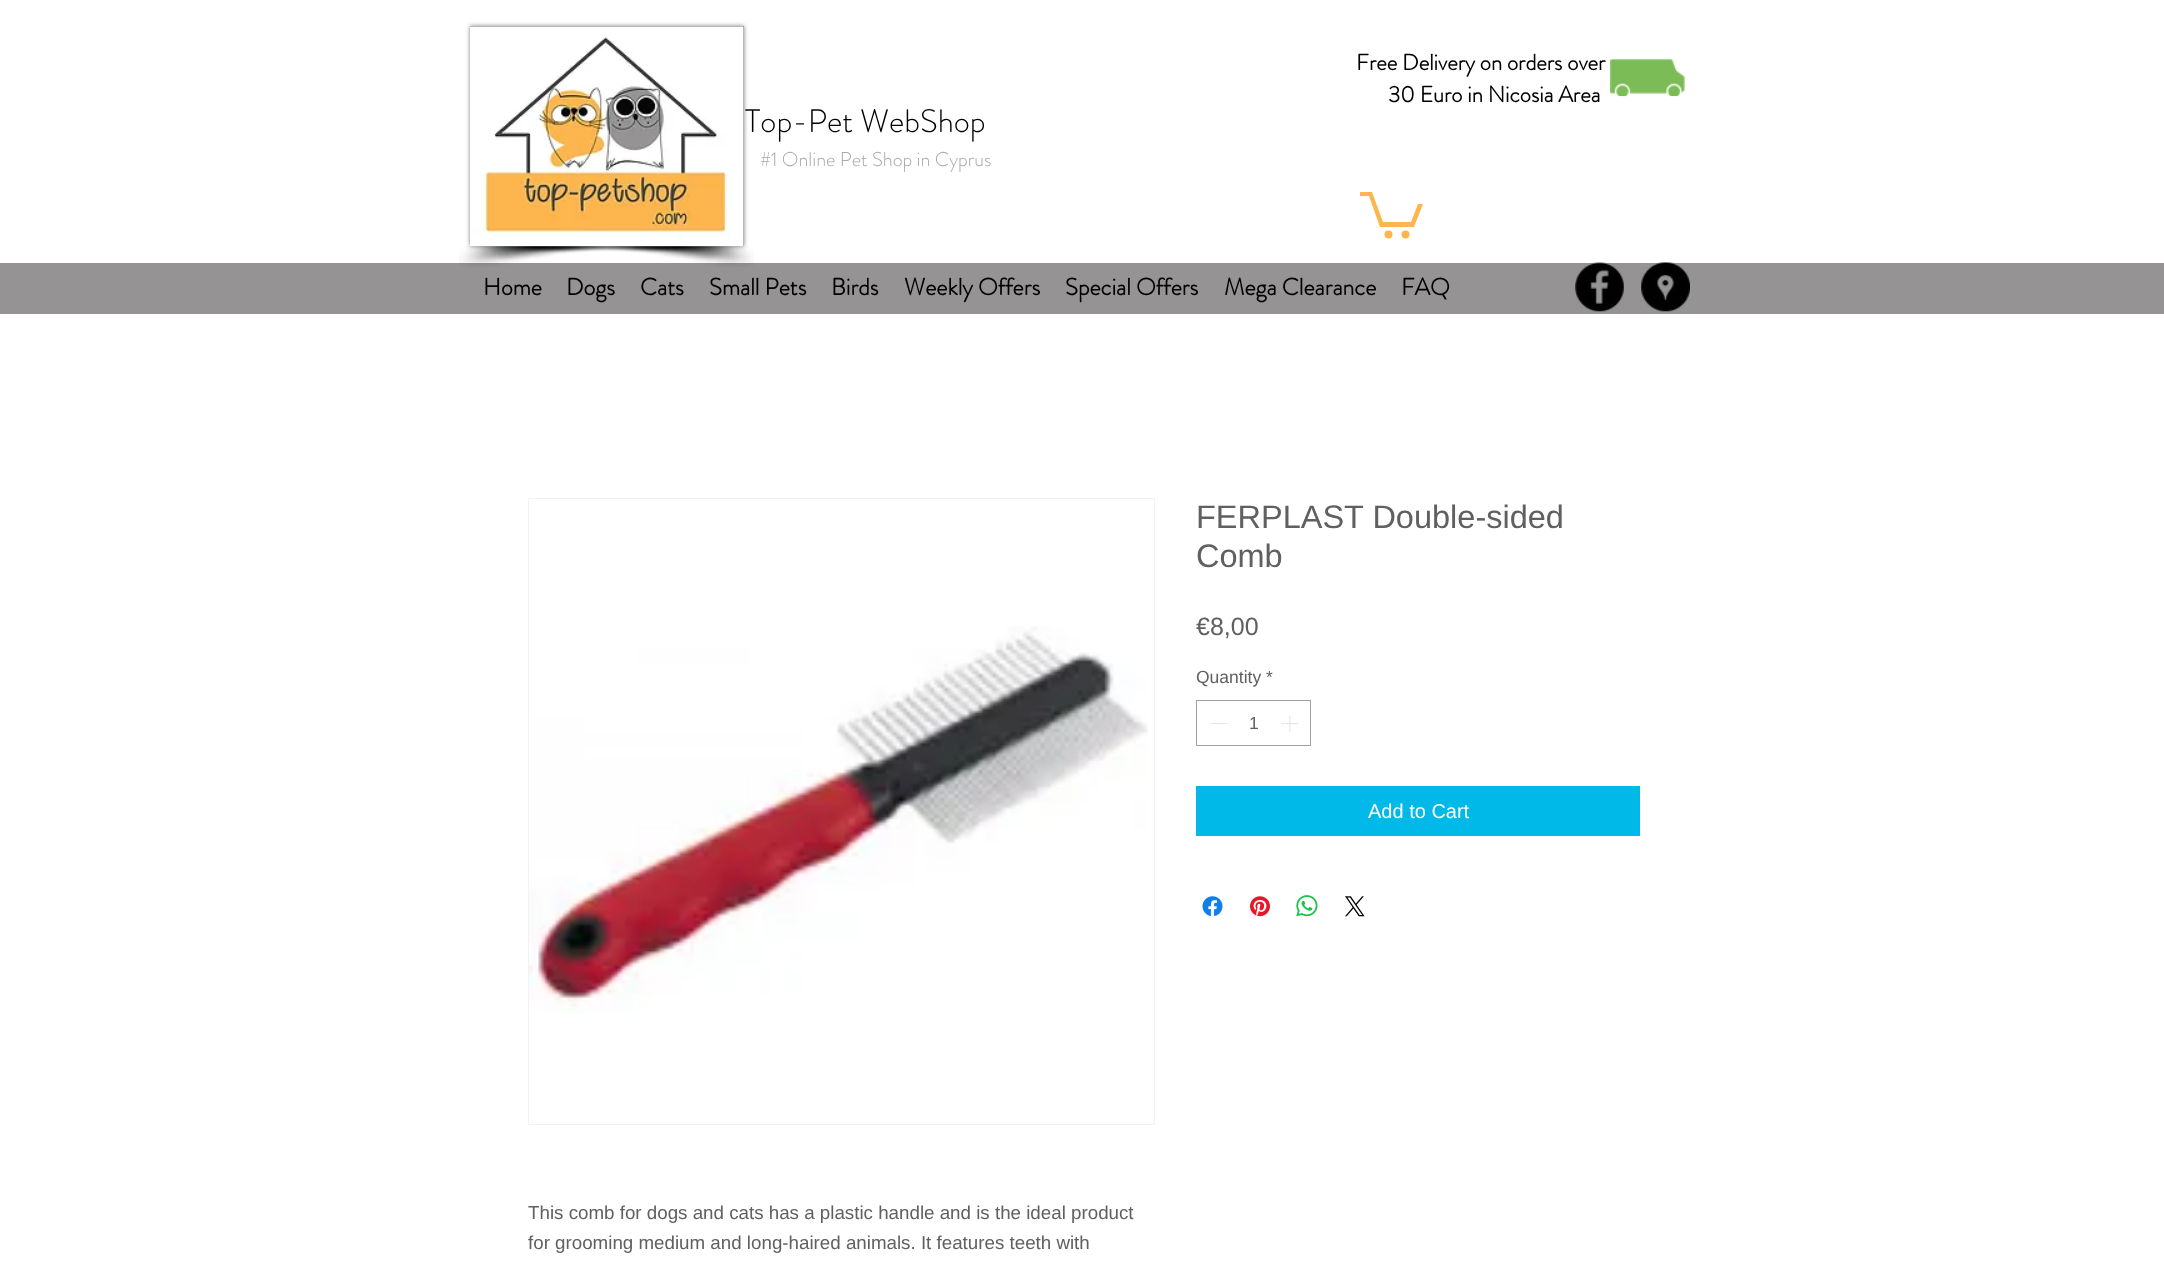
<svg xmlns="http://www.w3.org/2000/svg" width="2164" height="1261">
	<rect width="100%" height="100%" fill="#FFFFFF" />
	<rect x="470" y="26" width="274" height="220" fill="#000000" fill-opacity="0.5" filter="blur(2px)" />
	<rect x="470" y="26" width="274" height="220" fill="#606060" />
	<image x="470" y="26" width="274" height="220" href="assets/img1.png" />
	<rect x="0" y="263" width="2164" height="51" fill="#959394" />
	<image x="459" y="246" width="184" height="21" href="assets/img2.png" />
	<image x="581" y="246" width="173" height="21" href="assets/img3.png" />
	<g font-family="'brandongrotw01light'" font-size="22.5" font-weight="700" fill="#000000">
		<text x="1356" y="70">Free Delivery on orders over</text>
		<text x="1388" y="102">30 Euro in Nicosia Area</text>
	</g>
	<image x="1610" y="58" width="75" height="39" href="assets/img4.png" />
	<text x="745" y="132" font-family="'brandongrotw01light'" font-size="32.5" font-weight="300" fill="#000000">Top-Pet WebShop</text>
	<text x="760" y="166" font-family="'brandongrotw01light'" font-size="20" font-weight="300" fill="#A8A8A8">#1 Online Pet Shop in Cyprus</text>
	<path d="M1423 204L1414 227H1380L1369 196H1360V192H1372L1383 222H1411L1418 204" fill="#FDB64E" />
	<circle cx="1405.5" cy="234.5" r="4" fill="#FDB64E" />
	<circle cx="1388.5" cy="234.5" r="4" fill="#FDB64E" />
	<g font-family="'brandongrotw01light'" font-size="23.75" font-weight="700" fill="#000000">
		<text x="483" y="295">Home</text>
		<text x="566" y="295">Dogs</text>
		<text x="640" y="295">Cats</text>
		<text x="709" y="295">Small Pets</text>
		<text x="831" y="295">Birds</text>
		<text x="904" y="295">Weekly Offers</text>
		<text x="1065" y="295">Special Offers</text>
		<text x="1224" y="295">Mega Clearance</text>
		<text x="1401" y="295">FAQ</text>
	</g>
	<image x="1575" y="262" width="49" height="50" href="assets/img5.png" />
	<image x="1641" y="262" width="49" height="50" href="assets/img6.png" />
	<g font-family="Liberation Sans" font-size="32.5" fill="#606060">
		<text x="1196" y="528">FERPLAST Double-sided</text>
		<text x="1196" y="567">Comb</text>
	</g>
	<text x="1196" y="635" font-family="Liberation Sans" font-size="25" fill="#606060">€8,00</text>
	<text x="1196" y="683" font-family="Liberation Sans" font-size="17.5" fill="#606060">Quantity *</text>
	<rect x="1196.5" y="700.5" width="114" height="45" fill="none" stroke="#A0A0A0" />
	<rect x="1211" y="723" width="16" height="1" fill="#E3E3E3" />
	<text x="1249" y="729" font-family="Liberation Sans" font-size="17.5" fill="#606060">1</text>
	<image x="1281" y="715" width="17" height="17" href="assets/img7.png" />
	<rect x="1196" y="786" width="444" height="50" fill="#00B9E8" />
	<text x="1368" y="818" font-family="Liberation Sans" font-size="20" fill="#FFFFFF">Add to Cart</text>
	<image x="1202" y="896" width="21" height="21" href="assets/img8.png" />
	<image x="1250" y="896" width="20" height="21" href="assets/img9.png" />
	<image x="1296" y="895" width="22" height="22" href="assets/img10.png" />
	<image x="1345" y="896" width="20" height="21" href="assets/img11.png" />
	<rect x="528.5" y="498.5" width="626" height="626" fill="none" stroke="#F2F2F2" />
	<image x="529" y="626" width="619" height="387" href="assets/img12.png" />
	<g font-family="Liberation Sans" font-size="18.75" fill="#606060">
		<text x="528" y="1219">This comb for dogs and cats has a plastic handle and is the ideal product</text>
		<text x="528" y="1249">for grooming medium and long-haired animals. It features teeth with</text>
	</g>
</svg>
